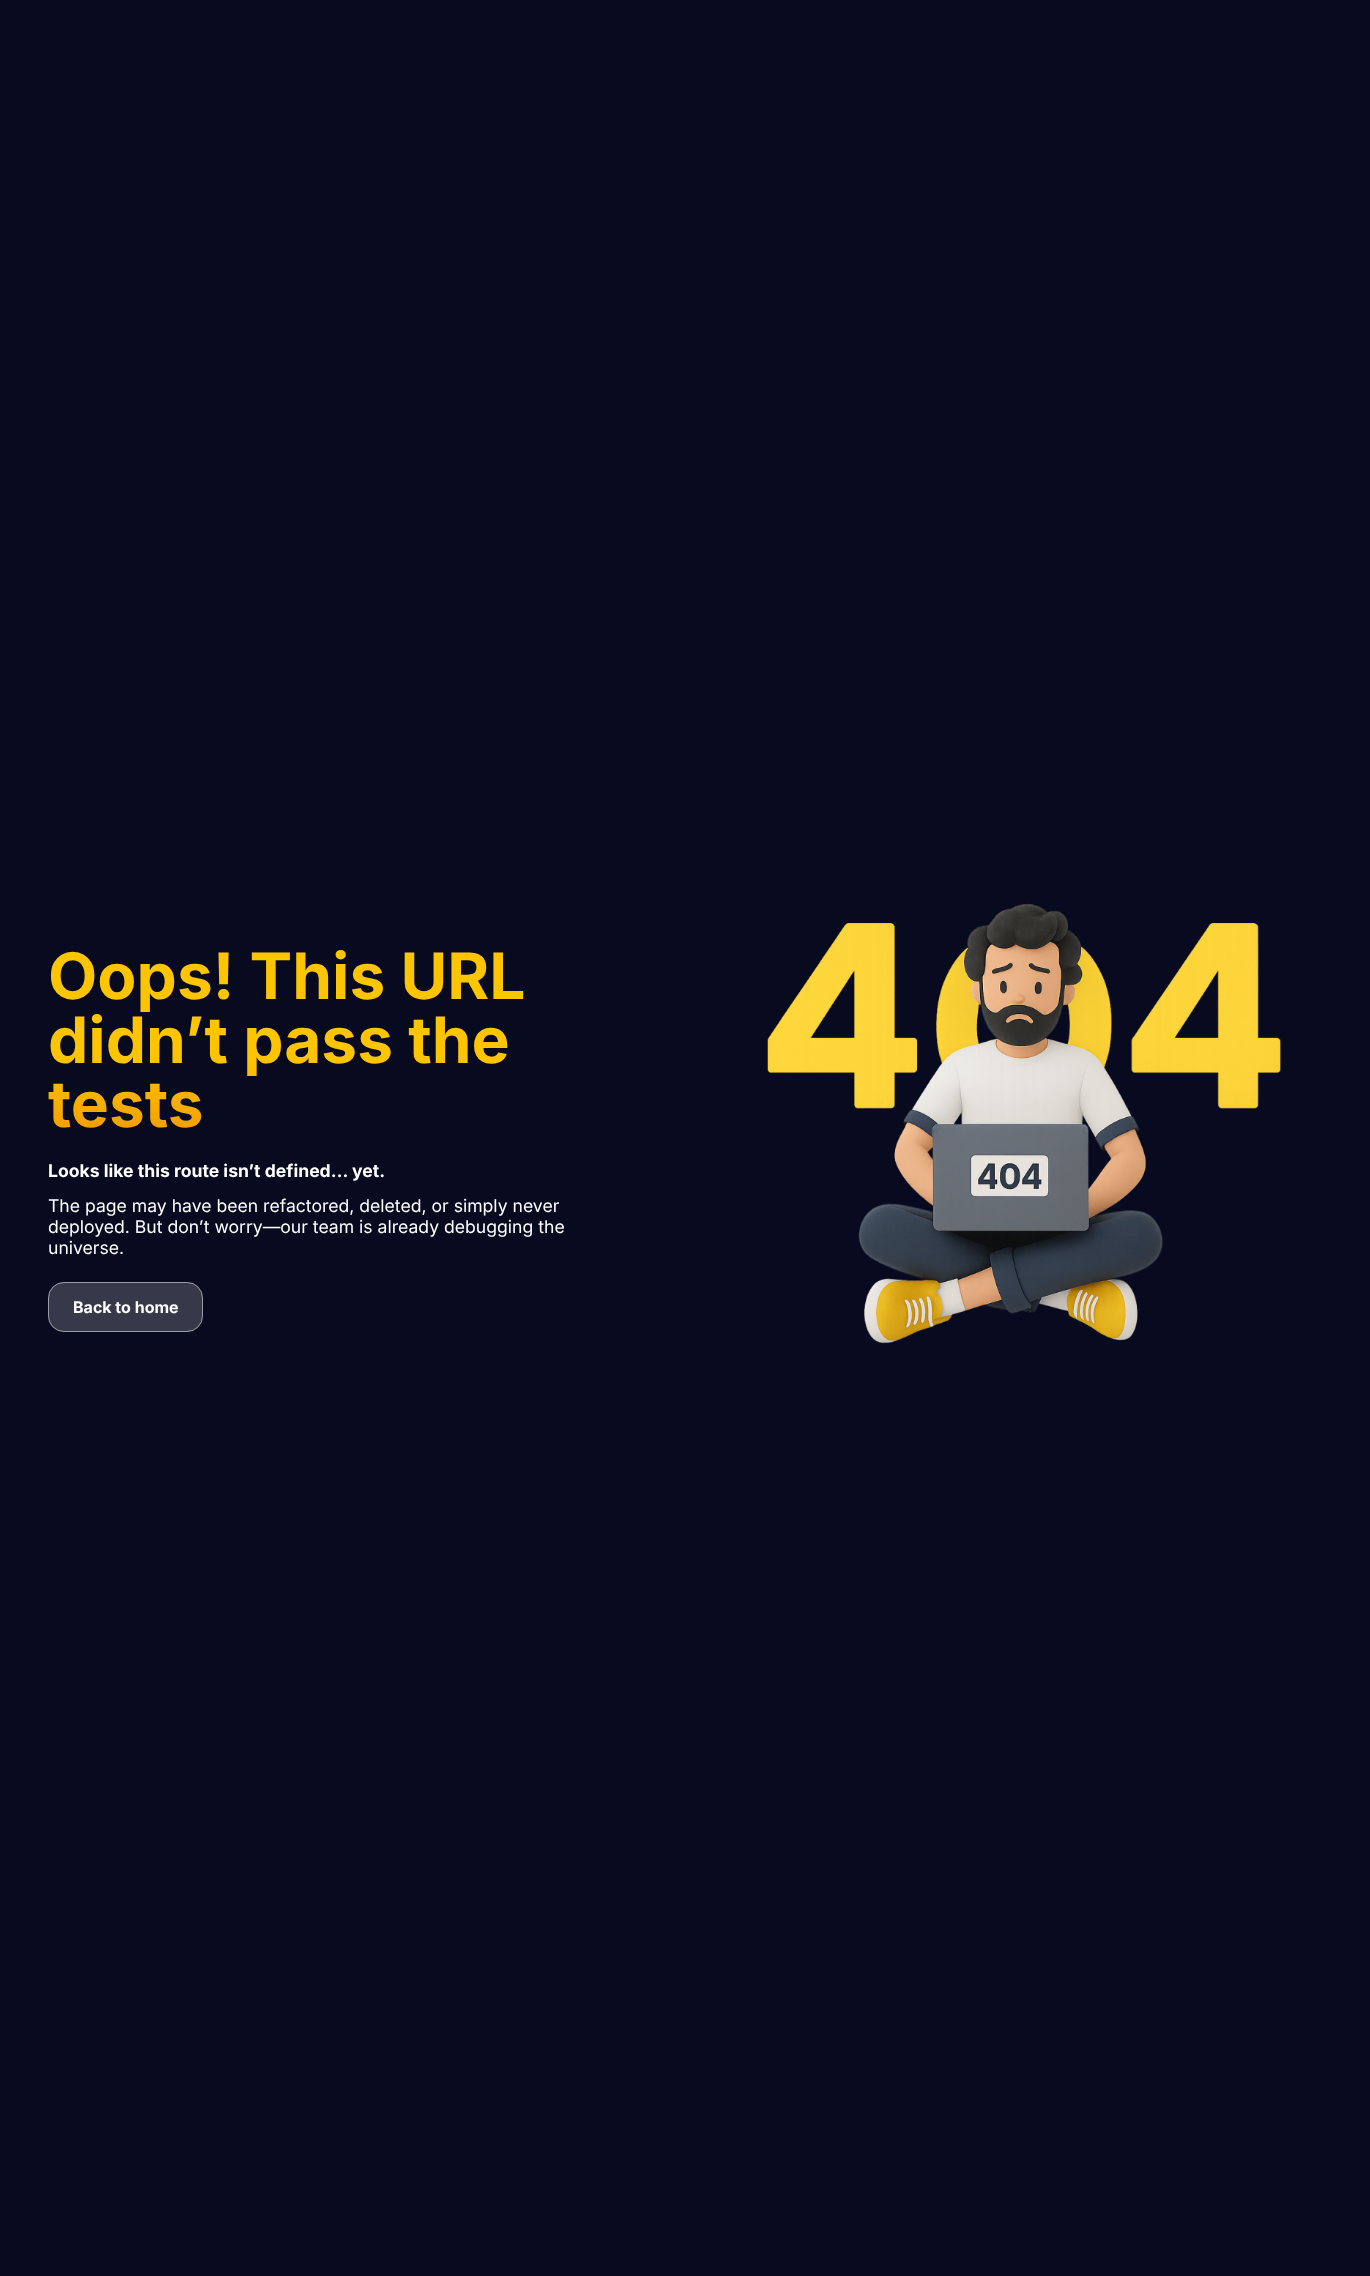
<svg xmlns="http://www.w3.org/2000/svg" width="1370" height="2276">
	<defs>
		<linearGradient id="g1" gradientUnits="userSpaceOnUse" x1="346" y1="1175" x2="346" y2="944"><stop offset="0" stop-color="#F08900" /><stop offset="0.5" stop-color="#FDC400" /></linearGradient>
	</defs>
	<rect width="100%" height="100%" fill="#080B20" />
	<g font-family="Inter" font-size="64" font-weight="700" fill="url(#g1)">
		<text x="48" y="999">Oops! This URL</text>
		<text x="48" y="1063">didn’t pass the</text>
		<text x="48" y="1127">tests</text>
	</g>
	<text x="48" y="1177" font-family="Inter" font-size="17.6" font-weight="700" fill="#FFFFFF">Looks like this route isn’t defined… yet.</text>
	<g font-family="Inter" font-size="17.6" fill="#FFFFFF">
		<text x="48" y="1212">The page may have been refactored, deleted, or simply never</text>
		<text x="48" y="1233">deployed. But don’t worry—our team is already debugging the</text>
		<text x="48" y="1254">universe.</text>
	</g>
	<rect x="48" y="1282" width="155" height="50" rx="16" fill="#37394A" />
	<rect x="48.5" y="1282.5" width="154" height="49" rx="15.5" fill="none" stroke="#FFFFFF" stroke-opacity="0.5" />
	<text x="73" y="1313" font-family="Inter" font-size="16" font-weight="700" fill="#FFFFFF">Back to home</text>
	<image x="767" y="903" width="514" height="441" href="assets/img1.png" />
</svg>
